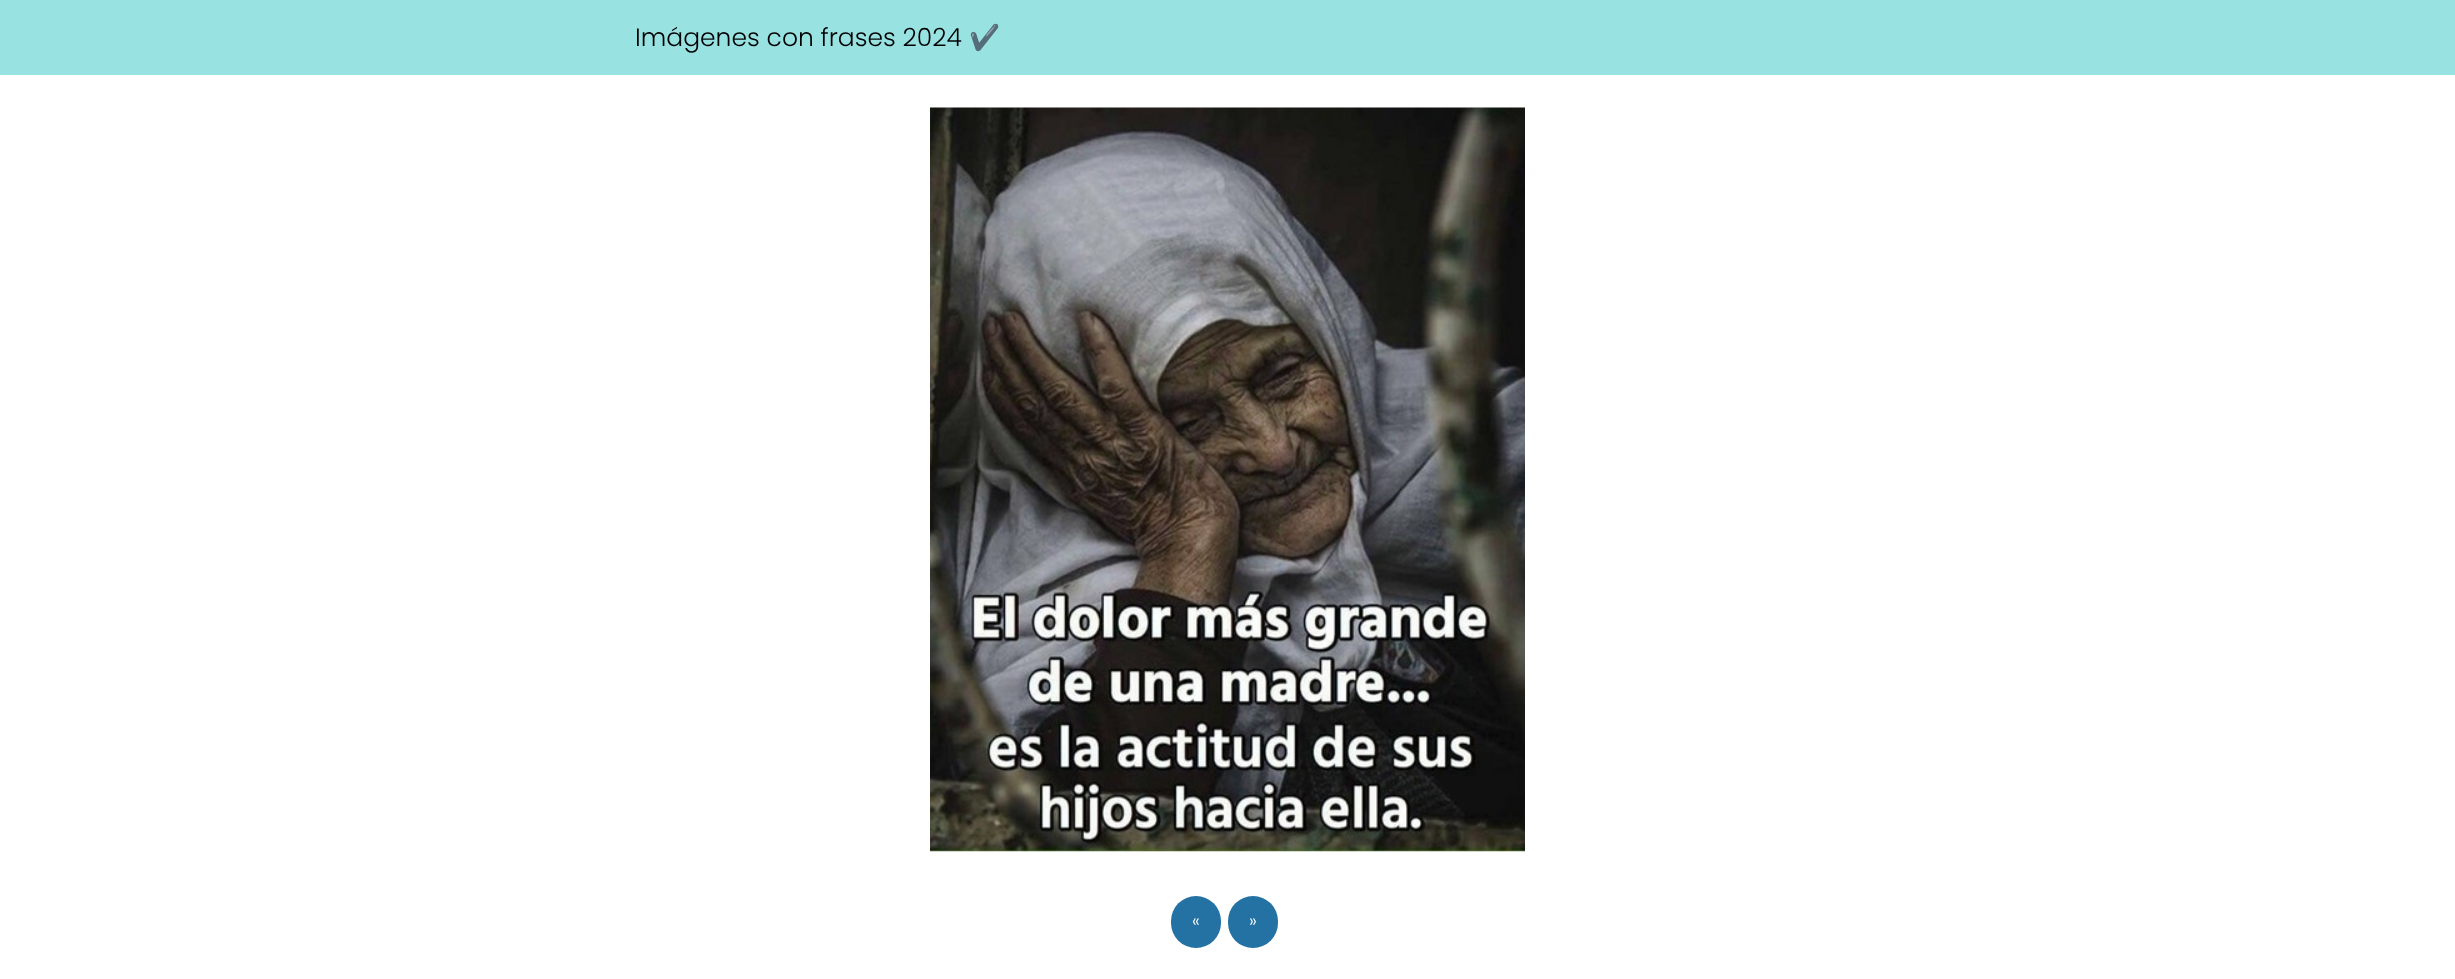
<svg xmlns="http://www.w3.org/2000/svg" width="2455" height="979">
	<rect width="100%" height="100%" fill="#FFFFFF" />
	<rect x="0" y="0" width="2455" height="75" fill="#98E2E2" />
	<text x="635" y="46" font-family="Poppins" font-size="25" font-weight="300" fill="#000000">Imágenes con frases 2024</text>
	<text x="969" y="46" font-family="Noto Color Emoji" font-size="25" fill="#000000">✔️</text>
	<image x="930" y="107" width="595" height="745" href="assets/img1.png" />
	<rect x="1171" y="896" width="50" height="52" rx="25" fill="#2471A3" />
	<text x="1192" y="927" font-family="Poppins" font-size="18" font-weight="300" fill="#FFFFFF">«</text>
	<rect x="1228" y="896" width="50" height="52" rx="25" fill="#2471A3" />
	<text x="1249" y="927" font-family="Poppins" font-size="18" font-weight="300" fill="#FFFFFF">»</text>
</svg>
